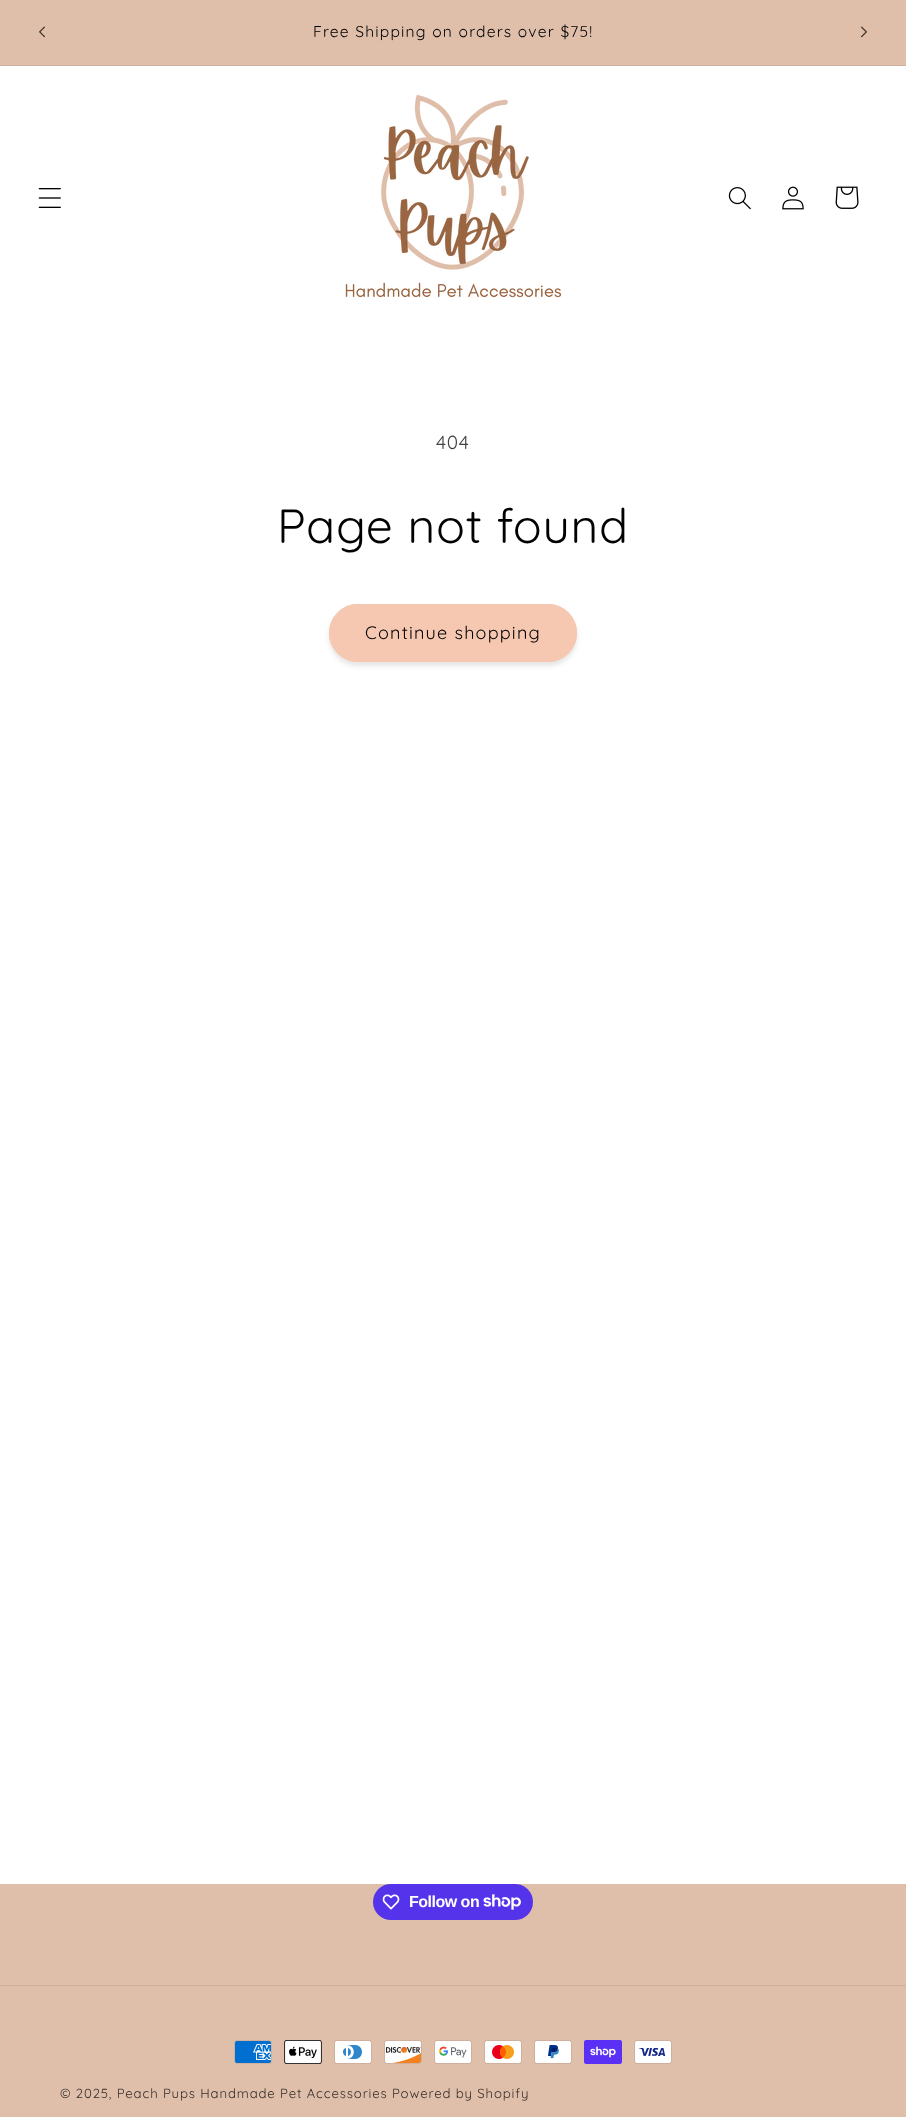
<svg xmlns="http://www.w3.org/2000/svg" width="906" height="2117">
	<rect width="100%" height="100%" fill="#FFFFFF" />
	<rect x="0" y="0" width="906" height="65" fill="#DFBEAA" />
	<rect x="0" y="65" width="906" height="1" fill="#CDAF9C" />
	<image x="39" y="26" width="6" height="12" href="assets/img1.png" />
	<text x="313" y="37" font-family="Quicksand" font-size="15.6" letter-spacing="1.2" fill="#000000">Free Shipping on orders over $75!</text>
	<image x="861" y="26" width="6" height="12" href="assets/img2.png" />
	<image x="38" y="188" width="23" height="20" href="assets/img3.png" />
	<image x="345" y="94" width="217" height="204" href="assets/img4.png" />
	<image x="728" y="187" width="23" height="23" href="assets/img5.png" />
	<image x="782" y="186" width="22" height="24" href="assets/img6.png" />
	<image x="835" y="186" width="24" height="23" href="assets/img7.png" />
	<text x="436" y="449" font-family="Quicksand" font-size="19" letter-spacing="0.75" fill="#404040">404</text>
	<text x="277" y="543" font-family="Quicksand" font-size="48" letter-spacing="0.75" fill="#000000">Page not found</text>
	<rect x="329" y="608" width="248" height="58" rx="29" fill="#000000" fill-opacity="0.1" filter="blur(2.5px)" />
	<rect x="329" y="604" width="248" height="58" rx="29" fill="#F6C8B1" />
	<rect x="330" y="605" width="246" height="56" rx="28" fill="none" stroke="#F6C8B1" stroke-width="2" />
	<text x="365" y="639" font-family="Quicksand" font-size="18" letter-spacing="1.2" fill="#000000">Continue shopping</text>
	<rect x="0" y="1884" width="906" height="233" fill="#DFBEAA" />
	<rect x="373" y="1884" width="160" height="36" rx="18" fill="#5433EB" />
	<image x="382" y="1894" width="18" height="16" href="assets/img8.png" />
	<text x="409" y="1907" font-family="Liberation Sans" font-size="16" font-weight="700" letter-spacing="-0.5" fill="#FFFFFF">Follow on</text>
	<image x="483" y="1894" width="38" height="16" href="assets/img9.png" />
	<rect x="0" y="1985" width="906" height="1" fill="#CDAF9C" />
	<image x="234" y="2040" width="38" height="24" href="assets/img10.png" />
	<image x="284" y="2040" width="38" height="24" href="assets/img11.png" />
	<image x="334" y="2040" width="38" height="24" href="assets/img12.png" />
	<image x="384" y="2040" width="38" height="24" href="assets/img13.png" />
	<image x="434" y="2040" width="38" height="24" href="assets/img14.png" />
	<image x="484" y="2040" width="38" height="24" href="assets/img15.png" />
	<image x="534" y="2040" width="38" height="24" href="assets/img16.png" />
	<image x="584" y="2040" width="38" height="24" href="assets/img17.png" />
	<image x="634" y="2040" width="38" height="24" href="assets/img18.png" />
	<text x="60" y="2098" font-family="Quicksand" font-size="13.2" letter-spacing="0.85" fill="#38302B">© 2025, Peach Pups Handmade Pet Accessories Powered by Shopify</text>
</svg>
